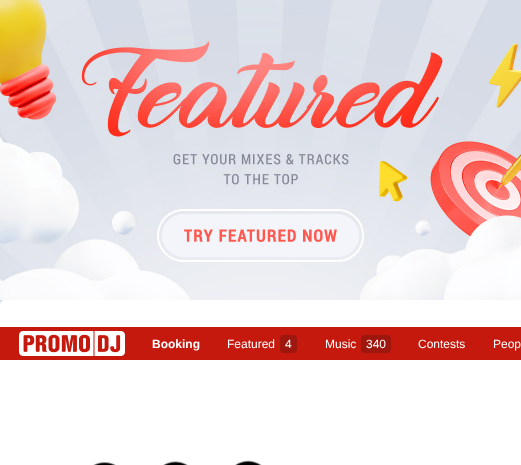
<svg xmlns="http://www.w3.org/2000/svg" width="521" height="465">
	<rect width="100%" height="100%" fill="#D5DBE6" />
	<image x="0" y="0" width="521" height="300" href="assets/img1.png" />
	<image x="0" y="137" width="79" height="108" href="assets/img2.png" />
	<path d="M5 300H521C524 300 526 302 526 305V327H0V305C0 302 2 300 5 300Z" fill="#FFFFFF" />
	<rect x="0" y="327" width="521" height="33" fill="#C6190E" />
	<image x="19" y="331" width="106" height="25" href="assets/img3.png" />
	<text x="152" y="348" font-family="Liberation Sans" font-size="12" font-weight="700" fill="#FFFFFF">Booking</text>
	<text x="227" y="348" font-family="Liberation Sans" font-size="12" fill="#FFFFFF">Featured</text>
	<rect x="280" y="335" width="17" height="18" rx="4" fill="#9E170E" />
	<g font-family="Liberation Sans" font-size="12" fill="#FFFFFF">
		<text x="285" y="348">4</text>
		<text x="325" y="348">Music</text>
	</g>
	<rect x="361" y="335" width="30" height="18" rx="4" fill="#9E170E" />
	<g font-family="Liberation Sans" font-size="12" fill="#FFFFFF">
		<text x="366" y="348">340</text>
		<text x="418" y="348">Сontests</text>
		<text x="493" y="348">Peop</text>
	</g>
	<rect x="0" y="360" width="521" height="105" fill="#FFFFFF" />
	<image x="93" y="460" width="169" height="5" href="assets/img4.png" />
</svg>
